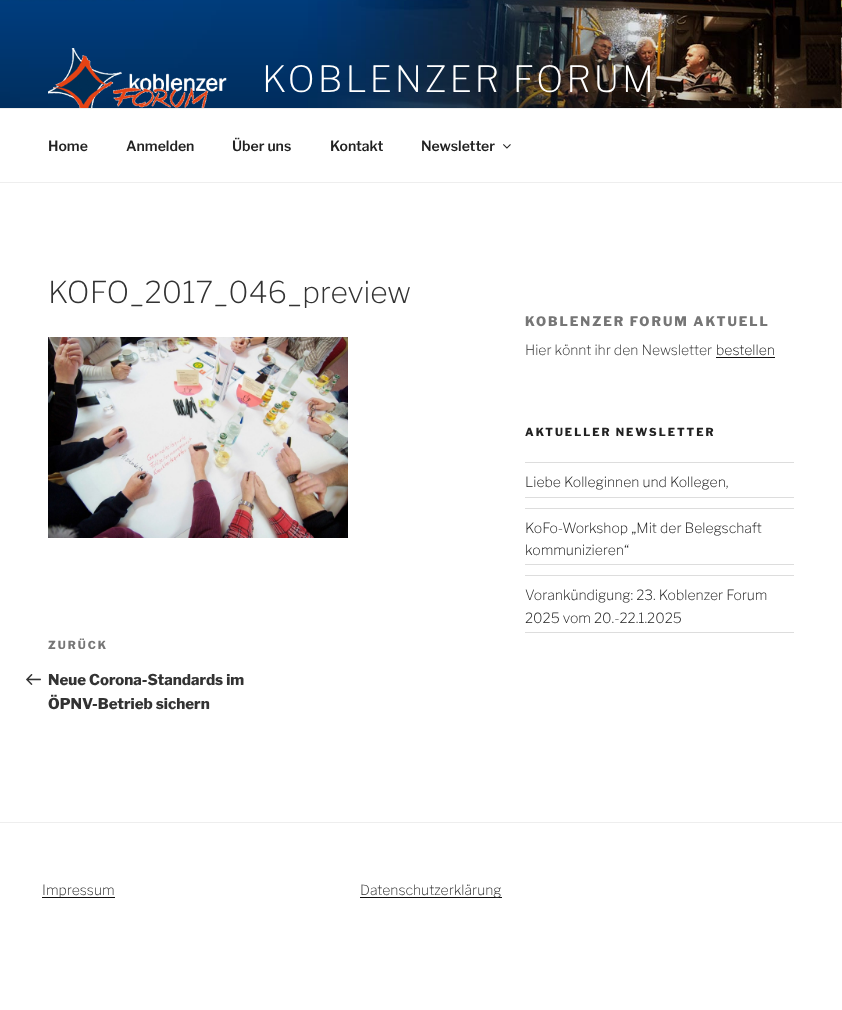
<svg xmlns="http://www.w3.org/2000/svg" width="842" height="1010">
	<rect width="100%" height="100%" fill="#FFFFFF" />
	<image x="0" y="0" width="842" height="108" href="assets/img1.png" />
	<image x="48" y="48" width="179" height="60" href="assets/img2.png" />
	<text x="262" y="92" font-family="Libre Franklin" font-size="36" font-weight="200" letter-spacing="2.9" fill="#FFFFFF">KOBLENZER FORUM</text>
	<rect x="0" y="108" width="842" height="1" fill="#EEEEEE" />
	<rect x="0" y="182" width="842" height="1" fill="#EEEEEE" />
	<g font-family="Libre Franklin" font-size="14" font-weight="600" fill="#222222">
		<text x="48" y="151">Home</text>
		<text x="126" y="151">Anmelden</text>
		<text x="232" y="151">Über uns</text>
		<text x="330" y="151">Kontakt</text>
		<text x="421" y="151">Newsletter</text>
	</g>
	<image x="503" y="144" width="8" height="5" href="assets/img3.png" />
	<text x="48" y="303" font-family="Libre Franklin" font-size="30" font-weight="200" fill="#333333">KOFO_2017_046_preview</text>
	<image x="48" y="337" width="300" height="201" href="assets/img4.png" />
	<text x="48" y="649" font-family="Libre Franklin" font-size="11" font-weight="800" letter-spacing="2" fill="#767676">ZURÜCK</text>
	<image x="26" y="674" width="15" height="11" href="assets/img5.png" />
	<g font-family="Libre Franklin" font-size="15" font-weight="800" fill="#333333">
		<text x="48" y="685">Neue Corona-Standards im</text>
		<text x="48" y="709">ÖPNV-Betrieb sichern</text>
	</g>
	<text x="525" y="326" font-family="Libre Franklin" font-size="13" font-weight="800" letter-spacing="1.95" fill="#767676">KOBLENZER FORUM AKTUELL</text>
	<text x="525" y="355" font-family="Libre Franklin" font-size="14" font-weight="200" fill="#333333">Hier könnt ihr den Newsletter</text>
	<text x="716" y="355" font-family="Libre Franklin" font-size="14" font-weight="200" fill="#222222">bestellen</text>
	<rect x="716" y="357" width="59" height="1" fill="#0F0F0F" />
	<text x="525" y="436" font-family="Libre Franklin" font-size="11" font-weight="800" letter-spacing="2" fill="#222222">AKTUELLER NEWSLETTER</text>
	<rect x="525" y="462" width="269" height="1" fill="#DDDDDD" />
	<rect x="525" y="497" width="269" height="1" fill="#DDDDDD" />
	<text x="525" y="487" font-family="Libre Franklin" font-size="14" font-weight="200" fill="#222222">Liebe Kolleginnen und Kollegen,</text>
	<rect x="525" y="508" width="269" height="1" fill="#DDDDDD" />
	<rect x="525" y="564" width="269" height="1" fill="#DDDDDD" />
	<g font-family="Libre Franklin" font-size="14" font-weight="200" fill="#222222">
		<text x="525" y="533">KoFo-Workshop „Mit der Belegschaft</text>
		<text x="525" y="555">kommunizieren“</text>
	</g>
	<rect x="525" y="575" width="269" height="1" fill="#DDDDDD" />
	<rect x="525" y="632" width="269" height="1" fill="#DDDDDD" />
	<g font-family="Libre Franklin" font-size="14" font-weight="200" fill="#222222">
		<text x="525" y="600">Vorankündigung: 23. Koblenzer Forum</text>
		<text x="525" y="623">2025 vom 20.-22.1.2025</text>
	</g>
	<rect x="0" y="822" width="842" height="1" fill="#EEEEEE" />
	<rect x="42" y="897" width="73" height="1" fill="#0F0F0F" />
	<text x="42" y="895" font-family="Libre Franklin" font-size="14" font-weight="200" fill="#333333">Impressum</text>
	<rect x="360" y="897" width="142" height="1" fill="#0F0F0F" />
	<text x="360" y="895" font-family="Libre Franklin" font-size="14" font-weight="200" fill="#333333">Datenschutzerklärung</text>
</svg>
